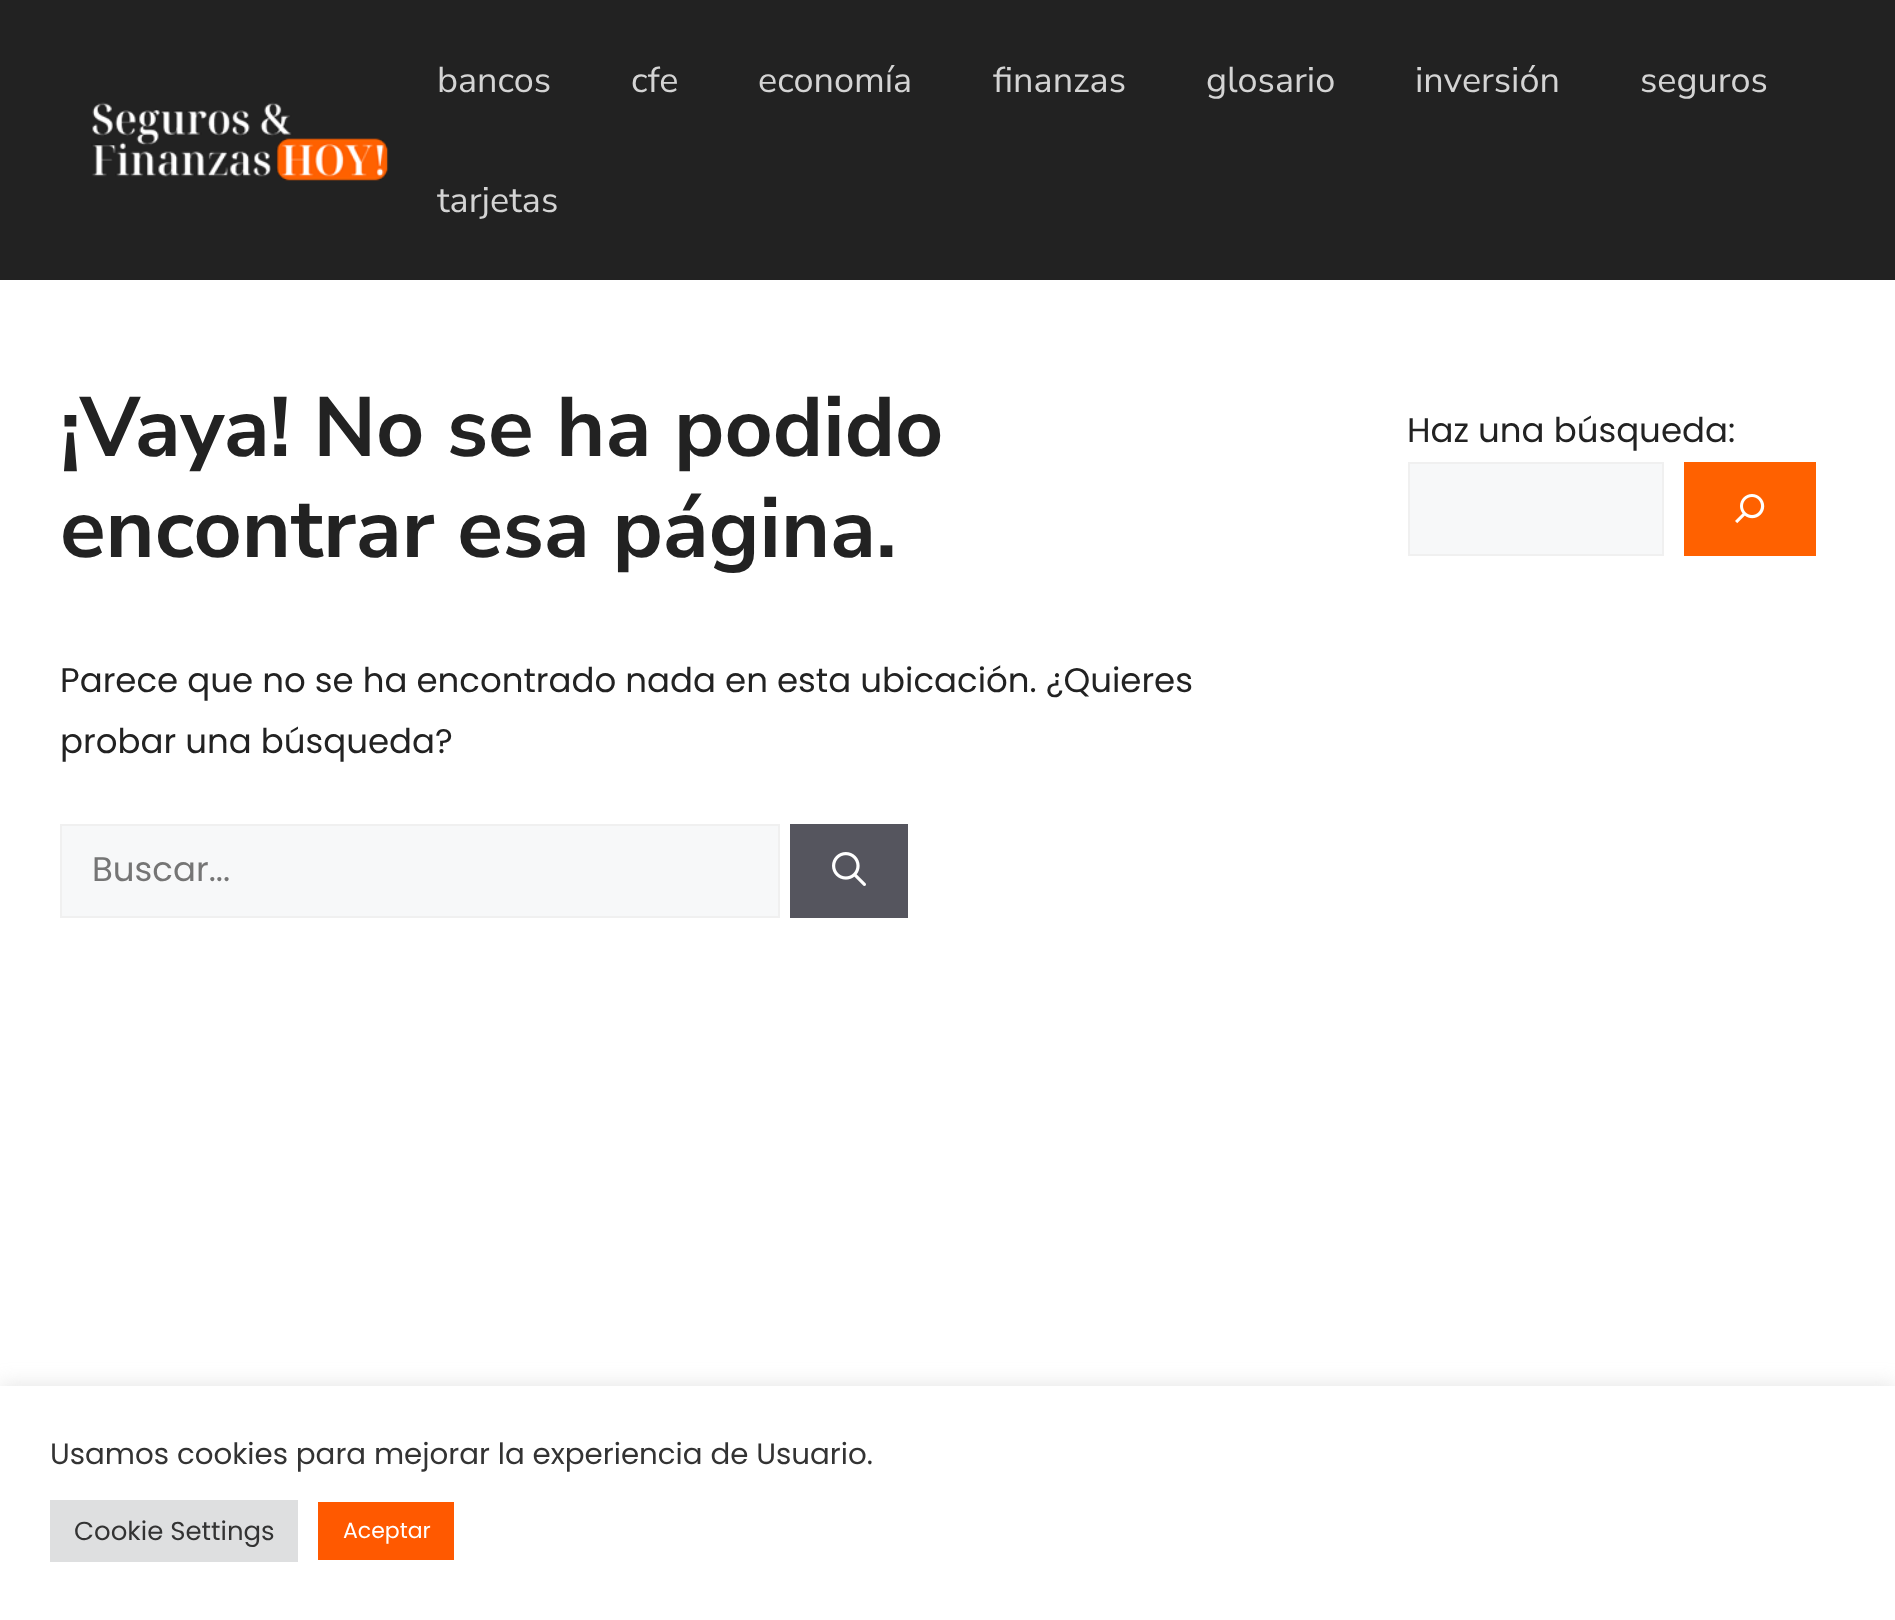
<svg xmlns="http://www.w3.org/2000/svg" width="1895" height="1620">
	<rect width="100%" height="100%" fill="#FFFFFF" />
	<rect x="0" y="0" width="1895" height="280" fill="#222222" />
	<image x="91" y="102" width="298" height="79" href="assets/img1.png" />
	<g font-family="Nunito Sans" font-size="36" fill="#D4D4D4">
		<text x="437" y="92">bancos</text>
		<text x="631" y="92">cfe</text>
		<text x="758" y="92">economía</text>
		<text x="993" y="92">finanzas</text>
		<text x="1206" y="92">glosario</text>
		<text x="1415" y="92">inversión</text>
		<text x="1640" y="92">seguros</text>
		<text x="437" y="212">tarjetas</text>
	</g>
	<g font-family="Nunito Sans" font-size="84" font-weight="700" fill="#222222">
		<text x="60" y="456">¡Vaya! No se ha podido</text>
		<text x="60" y="557">encontrar esa página.</text>
	</g>
	<g font-family="Poppins" font-size="34" fill="#222222">
		<text x="60" y="692">Parece que no se ha encontrado nada en esta ubicación. ¿Quieres</text>
		<text x="60" y="753">probar una búsqueda?</text>
	</g>
	<rect x="61" y="825" width="718" height="92" fill="#F7F8F9" stroke="#F0F0F0" stroke-width="2" />
	<text x="92" y="881" font-family="Poppins" font-size="34" fill="#757575">Buscar...</text>
	<rect x="790" y="824" width="118" height="94" fill="#55555E" />
	<image x="832" y="852" width="34" height="34" href="assets/img2.png" />
	<text x="1407" y="442" font-family="Poppins" font-size="34" fill="#222222">Haz una búsqueda:</text>
	<rect x="1409" y="463" width="254" height="92" fill="#F7F8F9" stroke="#F0F0F0" stroke-width="2" />
	<rect x="1684" y="462" width="132" height="94" fill="#FF6100" />
	<image x="1735" y="494" width="30" height="30" href="assets/img3.png" />
	<rect x="0" y="1384" width="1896" height="234" fill="#ACABAB" fill-opacity="0.3" filter="blur(10px)" />
	<rect x="0" y="1386" width="1895" height="234" fill="#FFFFFF" />
	<text x="50" y="1464" font-family="Poppins" font-size="29.3" fill="#333333">Usamos cookies para mejorar la experiencia de Usuario.</text>
	<rect x="50" y="1500" width="248" height="62" fill="#DEDFE0" />
	<text x="74" y="1540" font-family="Poppins" font-size="26" fill="#333333">Cookie Settings</text>
	<rect x="318" y="1502" width="136" height="58" fill="#FF5900" />
	<text x="343" y="1538" font-family="Poppins" font-size="22" fill="#FFFFFF">Aceptar</text>
</svg>
